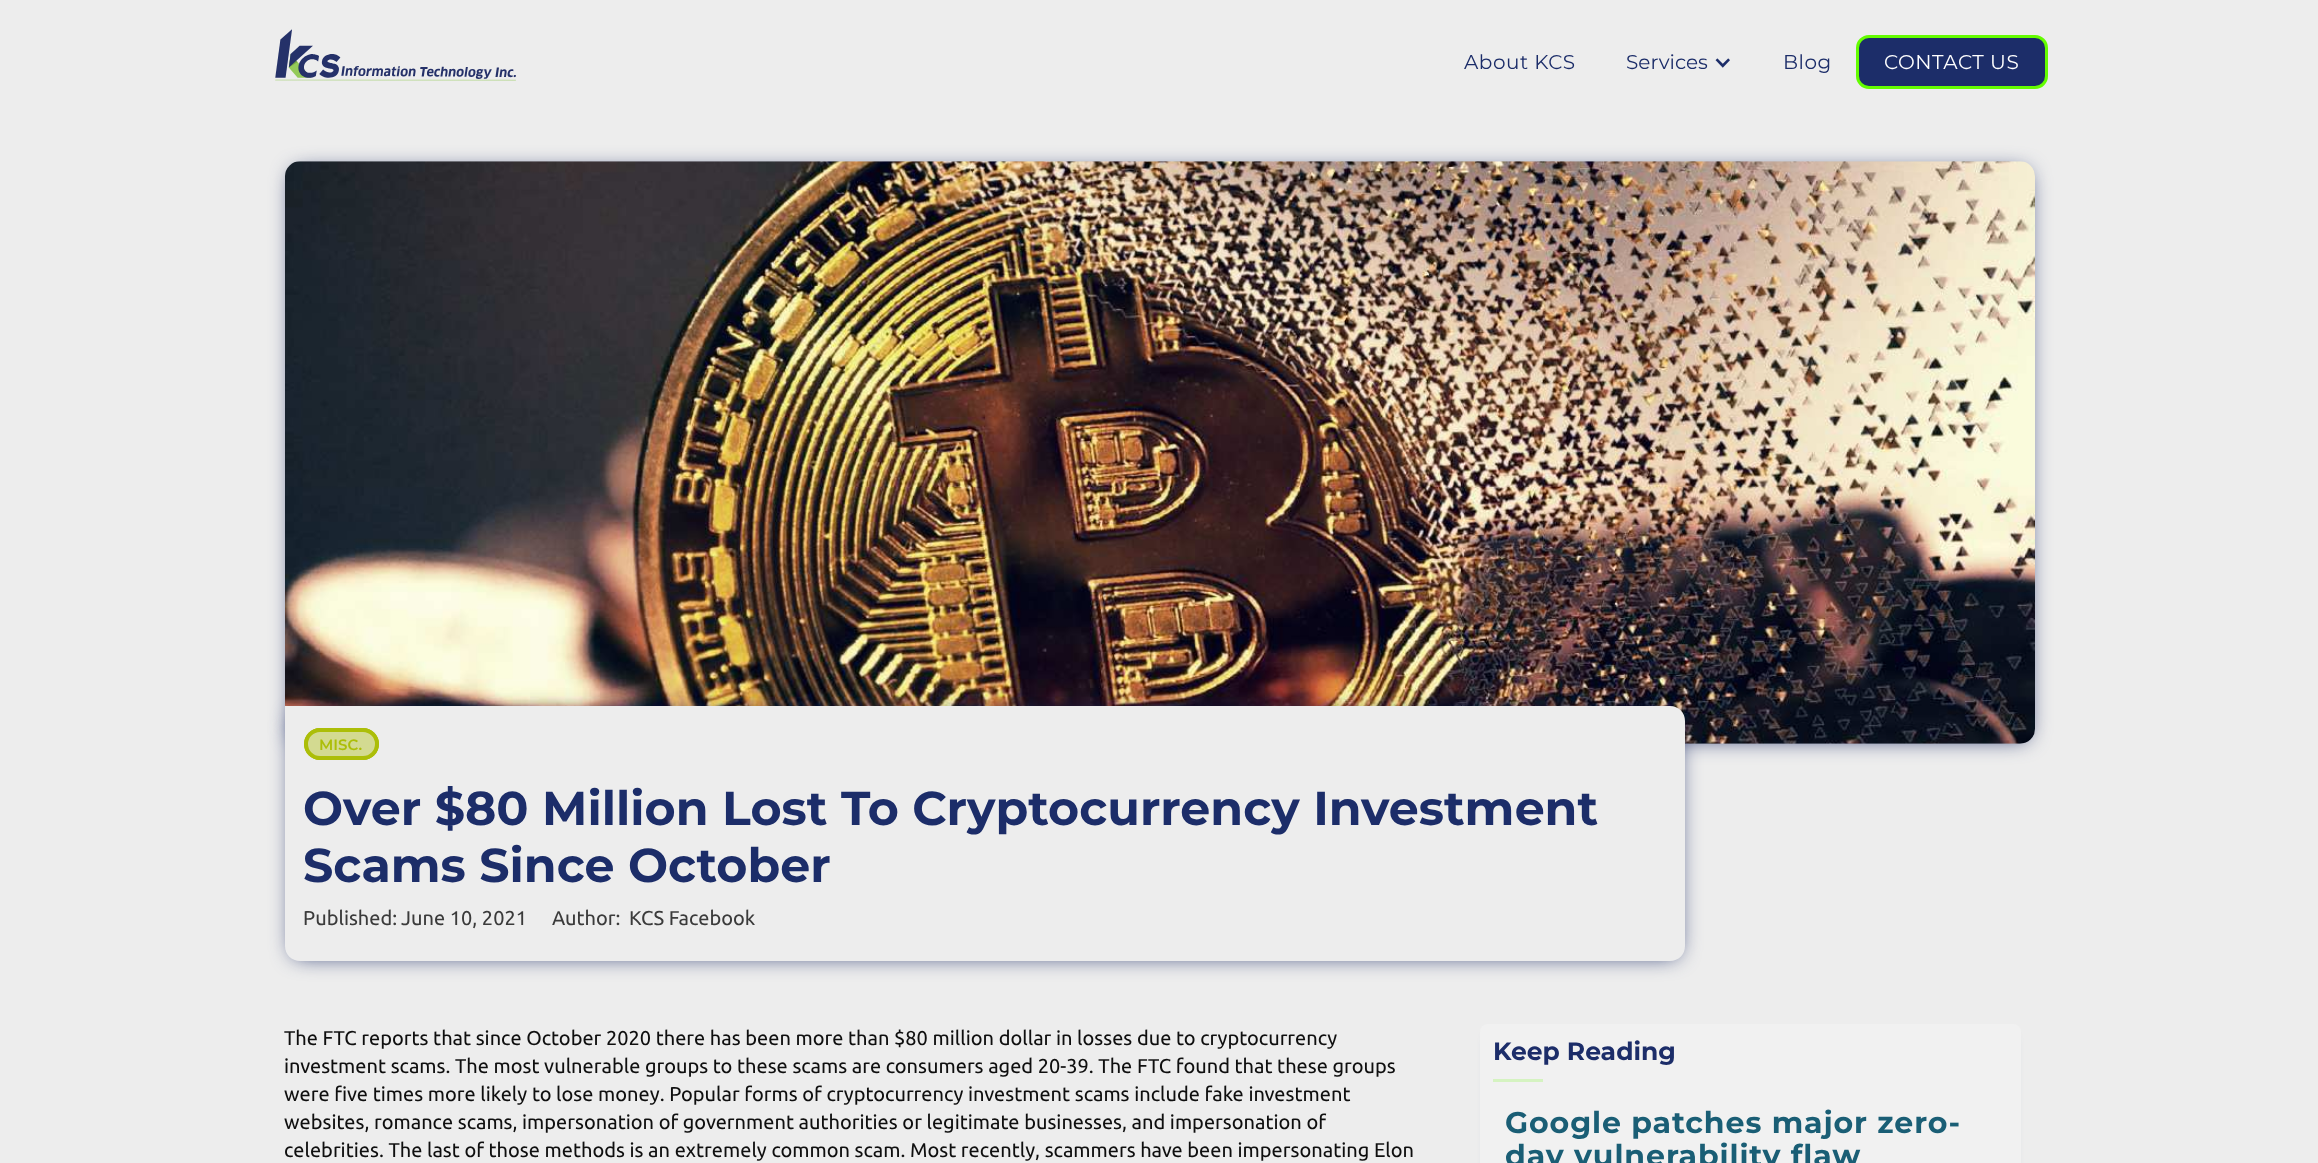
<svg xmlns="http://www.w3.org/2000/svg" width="2318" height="1163">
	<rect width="100%" height="100%" fill="#EDEDED" />
	<image x="275" y="29" width="241" height="52" href="assets/img1.png" />
	<text x="1464" y="69" font-family="Montserrat" font-size="20" letter-spacing="0.5" fill="#1C2D69">About KCS</text>
	<text x="1626" y="69" font-family="Montserrat" font-size="20" fill="#1C2D69">Services</text>
	<image x="1715" y="58" width="15" height="10" href="assets/img2.png" />
	<text x="1783" y="69" font-family="Montserrat" font-size="20" letter-spacing="0.5" fill="#1C2D69">Blog</text>
	<rect x="1857.5" y="36.5" width="189" height="51" rx="11.5" fill="#1C2D69" stroke="#64FD00" stroke-width="3" />
	<text x="1884" y="69" font-family="Montserrat" font-size="20" letter-spacing="0.5" fill="#FFFFFF">CONTACT US</text>
	<rect x="293" y="171" width="1735" height="568" rx="8" fill="#1C2D69" filter="blur(10.5px)" />
	<image x="285" y="161" width="1750" height="583" href="assets/img3.png" />
	<rect x="293" y="716" width="1385" height="240" rx="8" fill="#1C2D69" filter="blur(10.5px)" />
	<path d="M285 706H1670C1678.5 706 1685 712.5 1685 721V946C1685 954.5 1678.5 961 1670 961H300C291.5 961 285 954.5 285 946Z" fill="#EDEDED" />
	<rect x="304" y="728" width="75" height="32" rx="16" fill="#ACBE08" />
	<rect x="306" y="730" width="71" height="28" rx="14" fill="#EDEDED" fill-opacity="0.6" stroke="#ACBE08" stroke-width="4" />
	<text x="319" y="750" font-family="Montserrat" font-size="15" font-weight="600" fill="#ACBE08">MISC.</text>
	<g font-family="Montserrat" font-size="47.5" font-weight="700" fill="#1C2D69">
		<text x="303" y="825">Over $80 Million Lost To Cryptocurrency Investment</text>
		<text x="303" y="882">Scams Since October</text>
	</g>
	<g font-family="Ubuntu" font-size="20" fill="#3B3B3B">
		<text x="303" y="925">Published:</text>
		<text x="401" y="925">June 10, 2021</text>
		<text x="552" y="925">Author:</text>
		<text x="629" y="925">KCS Facebook</text>
	</g>
	<g font-family="Ubuntu" font-size="20" fill="#0F0F0F">
		<text x="284" y="1045">The FTC reports that since October 2020 there has been more than $80 million dollar in losses due to cryptocurrency</text>
		<text x="284" y="1073">investment scams. The most vulnerable groups to these scams are consumers aged 20-39. The FTC found that these groups</text>
		<text x="284" y="1101">were five times more likely to lose money. Popular forms of cryptocurrency investment scams include fake investment</text>
		<text x="284" y="1129">websites, romance scams, impersonation of government authorities or legitimate businesses, and impersonation of</text>
		<text x="284" y="1157">celebrities. The last of those methods is an extremely common scam. Most recently, scammers have been impersonating Elon</text>
	</g>
	<rect x="1491" y="1038" width="519" height="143" fill="#1C2D69" filter="blur(6px)" />
	<rect x="1480" y="1024" width="541" height="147" rx="8" fill="#F1F1F1" />
	<text x="1493" y="1060" font-family="Montserrat" font-size="25" font-weight="700" fill="#1C2D69">Keep Reading</text>
	<rect x="1493" y="1079" width="50" height="3" fill="#D5F3C1" />
	<g font-family="Montserrat" font-size="30" font-weight="700" letter-spacing="0.9" fill="#1A5E75">
		<text x="1505" y="1133">Google patches major zero-</text>
		<text x="1505" y="1166">day vulnerability flaw</text>
	</g>
</svg>
